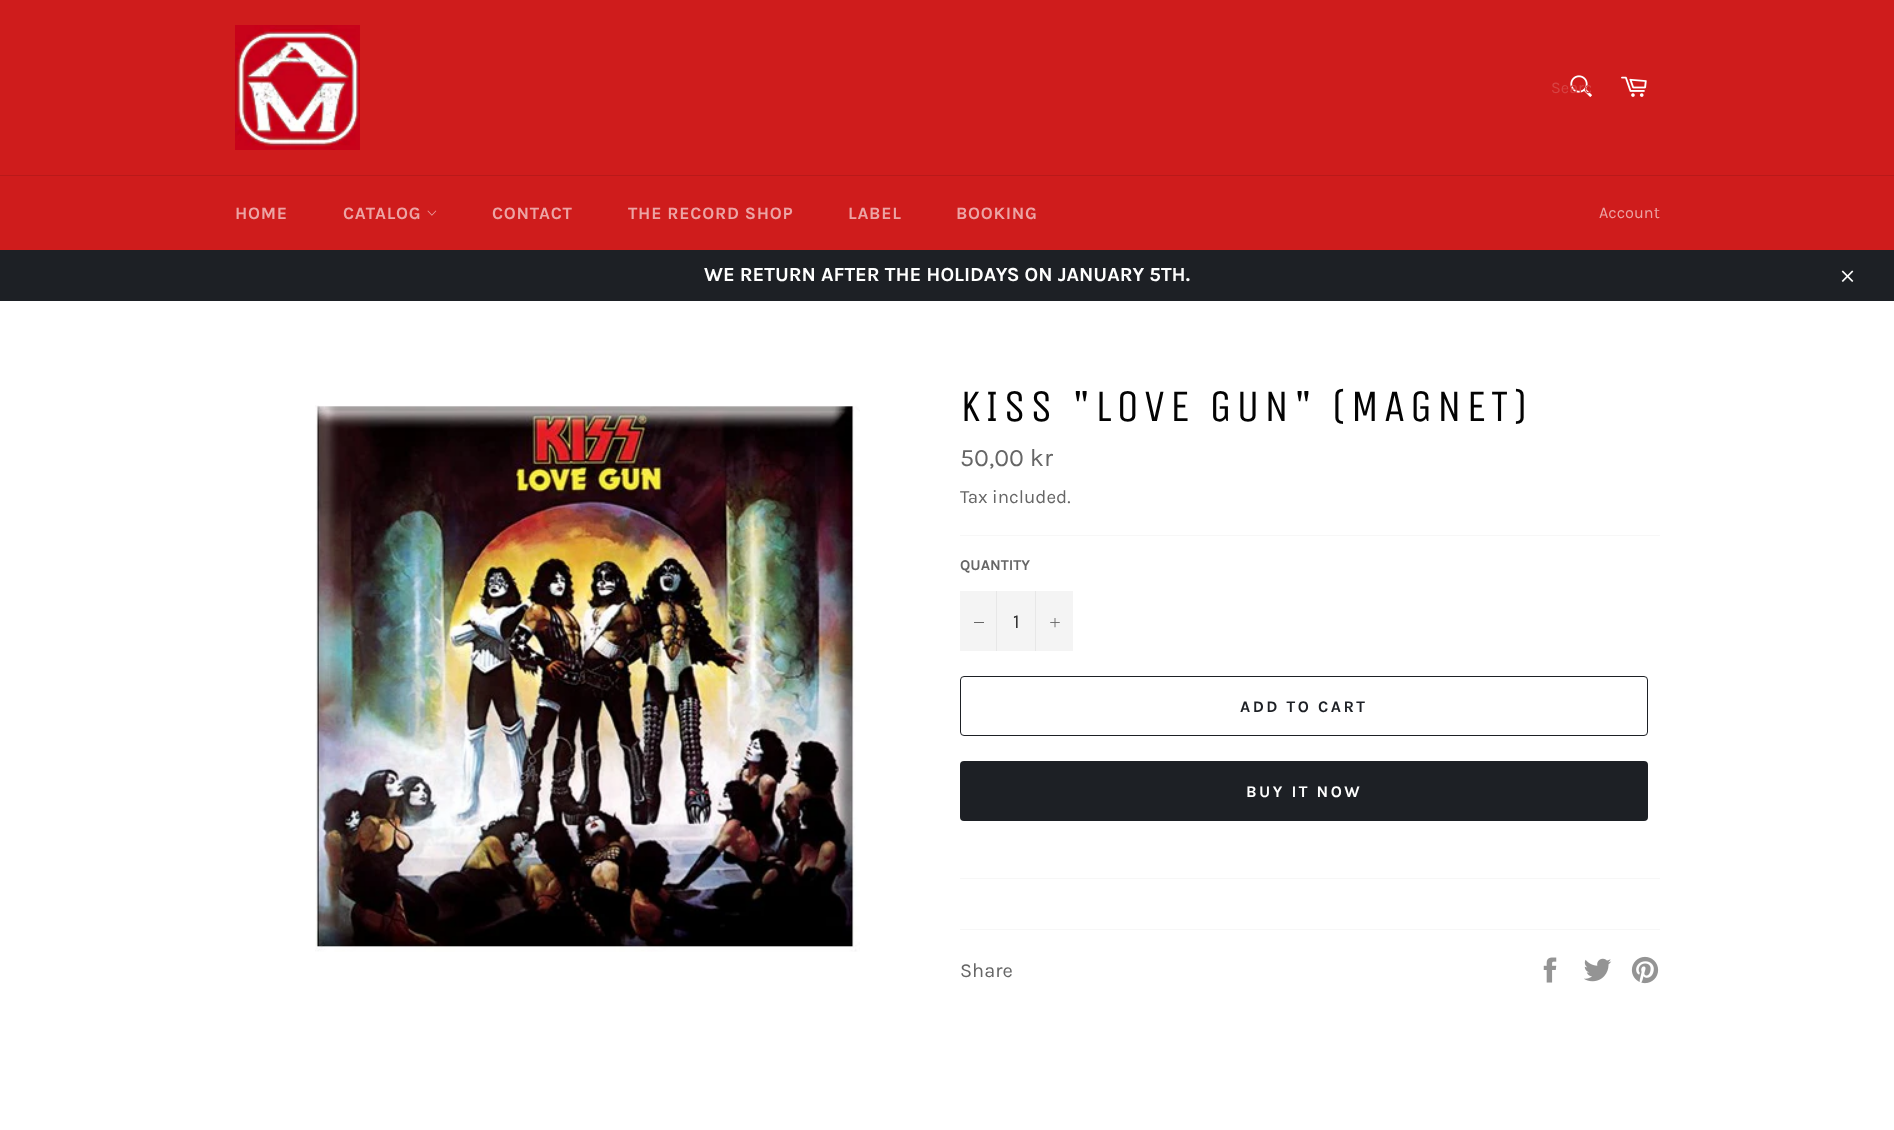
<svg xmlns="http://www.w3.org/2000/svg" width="1894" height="1130">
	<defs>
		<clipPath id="clip1"><rect x="1551" y="79" width="40" height="19" /></clipPath>
	</defs>
	<rect width="100%" height="100%" fill="#CF1C1C" />
	<image x="235" y="25" width="125" height="125" href="assets/img1.png" />
	<image x="1570" y="75" width="22" height="22" href="assets/img2.png" />
	<g clip-path="url(#clip1)">
		<text x="1551" y="93" font-family="Karla" font-size="16.25" fill="#D74343">Searc</text>
	</g>
	<image x="1621" y="76" width="26" height="21" href="assets/img3.png" />
	<rect x="0" y="175" width="1894" height="1" fill="#B91919" />
	<g font-family="Karla" font-size="17.5" font-weight="700" letter-spacing="0.75" fill="#ECA4A4">
		<text x="235" y="219">HOME</text>
		<text x="343" y="219">CATALOG</text>
	</g>
	<image x="427" y="210" width="10" height="6" href="assets/img4.png" />
	<g font-family="Karla" font-size="17.5" font-weight="700" letter-spacing="0.75" fill="#ECA4A4">
		<text x="492" y="219">CONTACT</text>
		<text x="628" y="219">THE RECORD SHOP</text>
		<text x="848" y="219">LABEL</text>
		<text x="956" y="219">BOOKING</text>
	</g>
	<text x="1599" y="218" font-family="Karla" font-size="16.25" fill="#ECA4A4">Account</text>
	<rect x="0" y="250" width="1894" height="51" fill="#1D2025" />
	<text x="704" y="281" font-family="Karla" font-size="20" font-weight="700" fill="#FFFFFF">WE RETURN AFTER THE HOLIDAYS ON JANUARY 5TH.</text>
	<image x="1841" y="270" width="13" height="12" href="assets/img5.png" />
	<rect x="0" y="301" width="1894" height="829" fill="#FFFFFF" />
	<image x="315" y="405" width="545" height="547" href="assets/img6.png" />
	<text x="960" y="421" font-family="Unica One" font-size="45" letter-spacing="4.5" fill="#030303">KISS "LOVE GUN" (MAGNET)</text>
	<text x="960" y="466" font-family="Karla" font-size="25" fill="#666666">50,00 kr</text>
	<text x="960" y="503" font-family="Karla" font-size="18.75" fill="#666666">Tax included.</text>
	<rect x="960" y="535" width="700" height="1" fill="#F7F7F7" />
	<text x="960" y="570" font-family="Karla" font-size="15" font-weight="700" fill="#666666">QUANTITY</text>
	<rect x="960" y="591" width="113" height="60" fill="#F4F4F4" />
	<rect x="996" y="591" width="1" height="60" fill="#E7E7E7" />
	<rect x="974" y="622" width="10" height="1" fill="#666666" />
	<text x="1013" y="628" font-family="Karla" font-size="20" fill="#333333">1</text>
	<rect x="1035" y="591" width="1" height="60" fill="#E7E7E7" />
	<image x="1050" y="618" width="10" height="10" href="assets/img7.png" />
	<rect x="960.5" y="676.5" width="687" height="59" rx="3.5" fill="none" stroke="#1D2025" />
	<text x="1240" y="712" font-family="Karla" font-size="16.25" font-weight="700" letter-spacing="2.5" fill="#1D2025">ADD TO CART</text>
	<rect x="960" y="761" width="688" height="60" rx="4" fill="#1D2025" />
	<text x="1246" y="797" font-family="Karla" font-size="16.25" font-weight="700" letter-spacing="2.5" fill="#FFFFFF">BUY IT NOW</text>
	<rect x="960" y="878" width="700" height="1" fill="#F7F7F7" />
	<rect x="960" y="929" width="700" height="1" fill="#F7F7F7" />
	<text x="960" y="977" font-family="Karla" font-size="20" fill="#666666">Share</text>
	<image x="1543" y="957" width="14" height="26" href="assets/img8.png" />
	<image x="1584" y="958" width="28" height="24" href="assets/img9.png" />
	<image x="1631" y="956" width="28" height="28" href="assets/img10.png" />
</svg>
